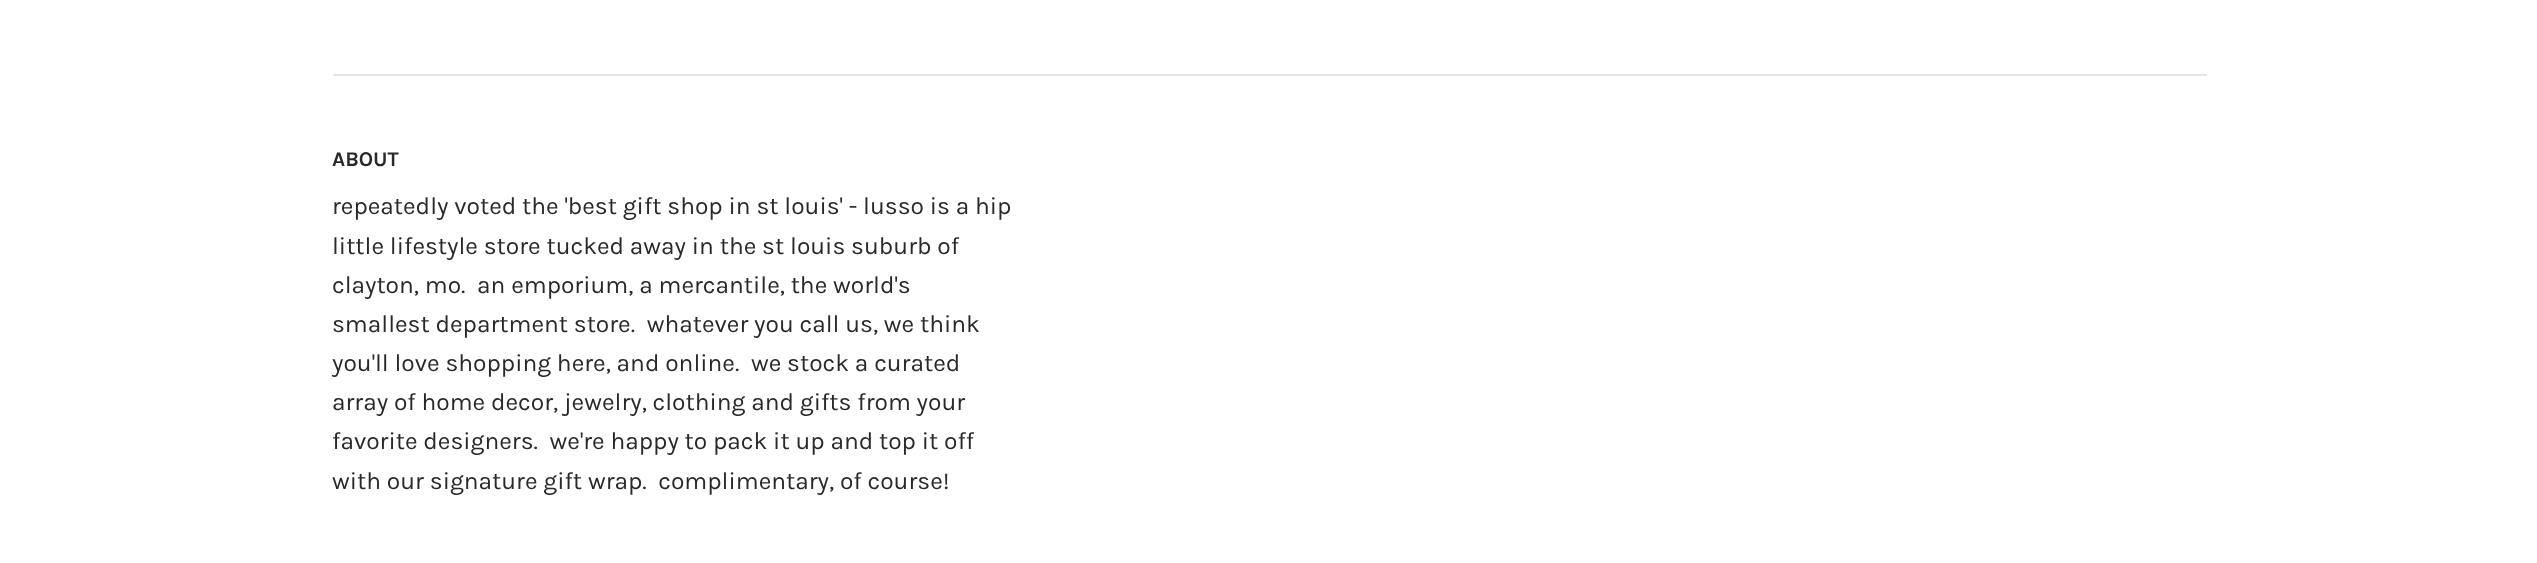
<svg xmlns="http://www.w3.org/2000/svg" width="2537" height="563">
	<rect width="100%" height="100%" fill="#FFFFFF" />
	<rect x="333" y="74" width="1874" height="2" fill="#E6E6E6" />
	<text x="332" y="166" font-family="Karla" font-size="21" font-weight="700" fill="#292929">ABOUT</text>
	<g font-family="Karla" font-size="24.5" fill="#292929">
		<text x="332" y="214">repeatedly voted the 'best gift shop in st louis' - lusso is a hip</text>
		<text x="332" y="254">little lifestyle store tucked away in the st louis suburb of</text>
		<text x="332" y="293" xml:space="preserve">clayton, mo.  an emporium, a mercantile, the world's</text>
		<text x="332" y="332" xml:space="preserve">smallest department store.  whatever you call us, we think</text>
		<text x="332" y="371" xml:space="preserve">you'll love shopping here, and online.  we stock a curated</text>
		<text x="332" y="410">array of home decor, jewelry, clothing and gifts from your</text>
		<text x="332" y="449" xml:space="preserve">favorite designers.  we're happy to pack it up and top it off</text>
		<text x="332" y="489" xml:space="preserve">with our signature gift wrap.  complimentary, of course!</text>
	</g>
</svg>
